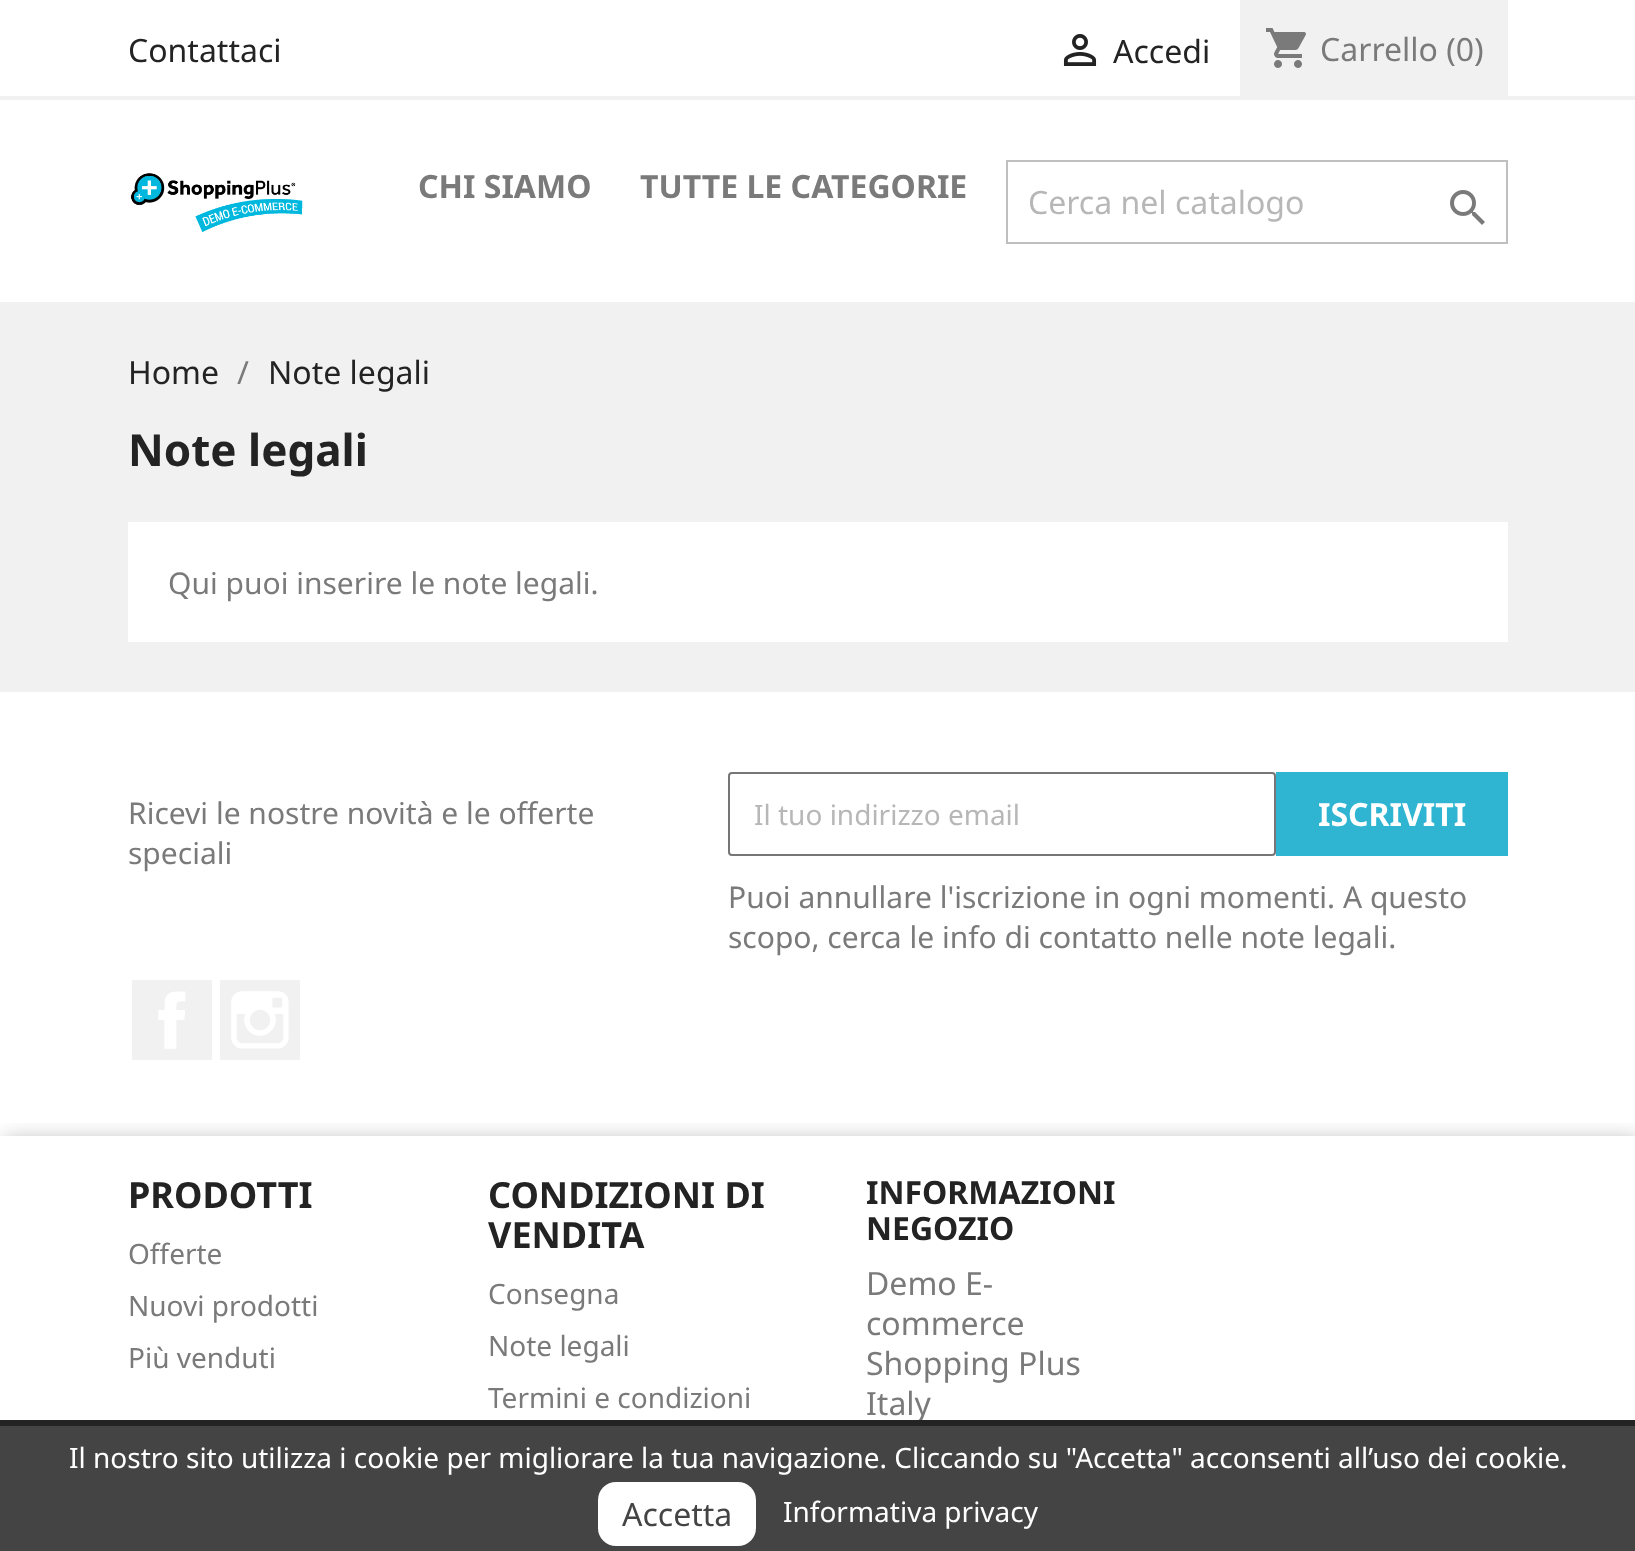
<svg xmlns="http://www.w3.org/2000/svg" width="1635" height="1551">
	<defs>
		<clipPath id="clip1"><rect x="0" y="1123" width="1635" height="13" /></clipPath>
	</defs>
	<rect width="100%" height="100%" fill="#FFFFFF" />
	<rect x="0" y="96" width="1635" height="4" fill="#F1F1F1" />
	<text x="128" y="62" font-family="Noto Sans" font-size="32" fill="#232323">Contattaci</text>
	<image x="1063" y="34" width="34" height="32" href="assets/img1.png" />
	<text x="1113" y="63" font-family="Noto Sans" font-size="32" fill="#232323">Accedi</text>
	<rect x="1240" y="0" width="268" height="96" fill="#F1F1F1" />
	<image x="1266" y="28" width="40" height="40" href="assets/img2.png" />
	<text x="1320" y="61" font-family="Noto Sans" font-size="32" fill="#7A7A7A">Carrello (0)</text>
	<image x="131" y="173" width="172" height="59" href="assets/img3.png" />
	<g font-family="Noto Sans" font-size="32" font-weight="700" fill="#7A7A7A">
		<text x="418" y="198">CHI SIAMO</text>
		<text x="640" y="198">TUTTE LE CATEGORIE</text>
	</g>
	<rect x="1007" y="161" width="500" height="82" fill="none" stroke="#BFBFBF" stroke-width="2" />
	<text x="1028" y="214" font-family="Noto Sans" font-size="32" fill="#B7B7B7">Cerca nel catalogo</text>
	<image x="1450" y="190" width="35" height="35" href="assets/img4.png" />
	<rect x="0" y="302" width="1635" height="390" fill="#F1F1F1" />
	<text x="128" y="384" font-family="Noto Sans" font-size="32" fill="#232323">Home</text>
	<text x="237" y="384" font-family="Noto Sans" font-size="32" fill="#7A7A7A">/</text>
	<text x="268" y="384" font-family="Noto Sans" font-size="32" fill="#232323">Note legali</text>
	<text x="128" y="466" font-family="Noto Sans" font-size="44" font-weight="700" fill="#232323">Note legali</text>
	<rect x="128" y="522" width="1380" height="120" fill="#FFFFFF" />
	<g font-family="Noto Sans" font-size="30" fill="#7A7A7A">
		<text x="168" y="594">Qui puoi inserire le note legali.</text>
		<text x="128" y="824">Ricevi le nostre novità e le offerte</text>
		<text x="128" y="864">speciali</text>
	</g>
	<rect x="729" y="773" width="546" height="82" rx="3" fill="none" stroke="#767676" stroke-width="2" />
	<text x="754" y="825" font-family="Noto Sans" font-size="28" fill="#B7B7B7">Il tuo indirizzo email</text>
	<rect x="1276" y="772" width="232" height="84" fill="#2FB5D2" />
	<text x="1318" y="826" font-family="Noto Sans" font-size="32" font-weight="700" fill="#FFFFFF">ISCRIVITI</text>
	<g font-family="Noto Sans" font-size="30" fill="#7A7A7A">
		<text x="728" y="908">Puoi annullare l'iscrizione in ogni momenti. A questo</text>
		<text x="728" y="948">scopo, cerca le info di contatto nelle note legali.</text>
	</g>
	<rect x="132" y="980" width="80" height="80" fill="#F1F1F1" />
	<image x="158" y="991" width="28" height="58" href="assets/img5.png" />
	<rect x="220" y="980" width="80" height="80" fill="#F1F1F1" />
	<image x="231" y="991" width="58" height="58" href="assets/img6.png" />
	<g clip-path="url(#clip1)">
		<rect x="4" y="1140" width="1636" height="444" fill="#000000" fill-opacity="0.3" filter="blur(11px)" />
	</g>
	<text x="128" y="1208" font-family="Noto Sans" font-size="36" font-weight="700" fill="#232323">PRODOTTI</text>
	<g font-family="Noto Sans" font-size="28" fill="#7A7A7A">
		<text x="128" y="1264">Offerte</text>
		<text x="128" y="1316">Nuovi prodotti</text>
		<text x="128" y="1368">Più venduti</text>
	</g>
	<g font-family="Noto Sans" font-size="36" font-weight="700" fill="#232323">
		<text x="488" y="1208">CONDIZIONI DI</text>
		<text x="488" y="1248">VENDITA</text>
	</g>
	<g font-family="Noto Sans" font-size="28" fill="#7A7A7A">
		<text x="488" y="1304">Consegna</text>
		<text x="488" y="1356">Note legali</text>
		<text x="488" y="1408">Termini e condizioni</text>
	</g>
	<g font-family="Noto Sans" font-size="32" font-weight="700" fill="#232323">
		<text x="866" y="1204">INFORMAZIONI</text>
		<text x="866" y="1240">NEGOZIO</text>
	</g>
	<g font-family="Noto Sans" font-size="32" fill="#7A7A7A">
		<text x="866" y="1295">Demo E-</text>
		<text x="866" y="1335">commerce</text>
		<text x="866" y="1375">Shopping Plus</text>
		<text x="866" y="1415">Italy</text>
	</g>
	<rect x="0" y="1426" width="1635" height="125" fill="#444444" />
	<rect x="0" y="1420" width="1635" height="6" fill="#232323" />
	<text x="69" y="1468" font-family="Noto Sans" font-size="28" fill="#FFFFFF">Il nostro sito utilizza i cookie per migliorare la tua navigazione. Cliccando su "Accetta" acconsenti all’uso dei cookie.</text>
	<rect x="598" y="1482" width="158" height="64" rx="18" fill="#FFFFFF" />
	<text x="622" y="1526" font-family="Noto Sans" font-size="32" fill="#444444">Accetta</text>
	<text x="783" y="1522" font-family="Noto Sans" font-size="28" fill="#FFFFFF">Informativa privacy</text>
</svg>
